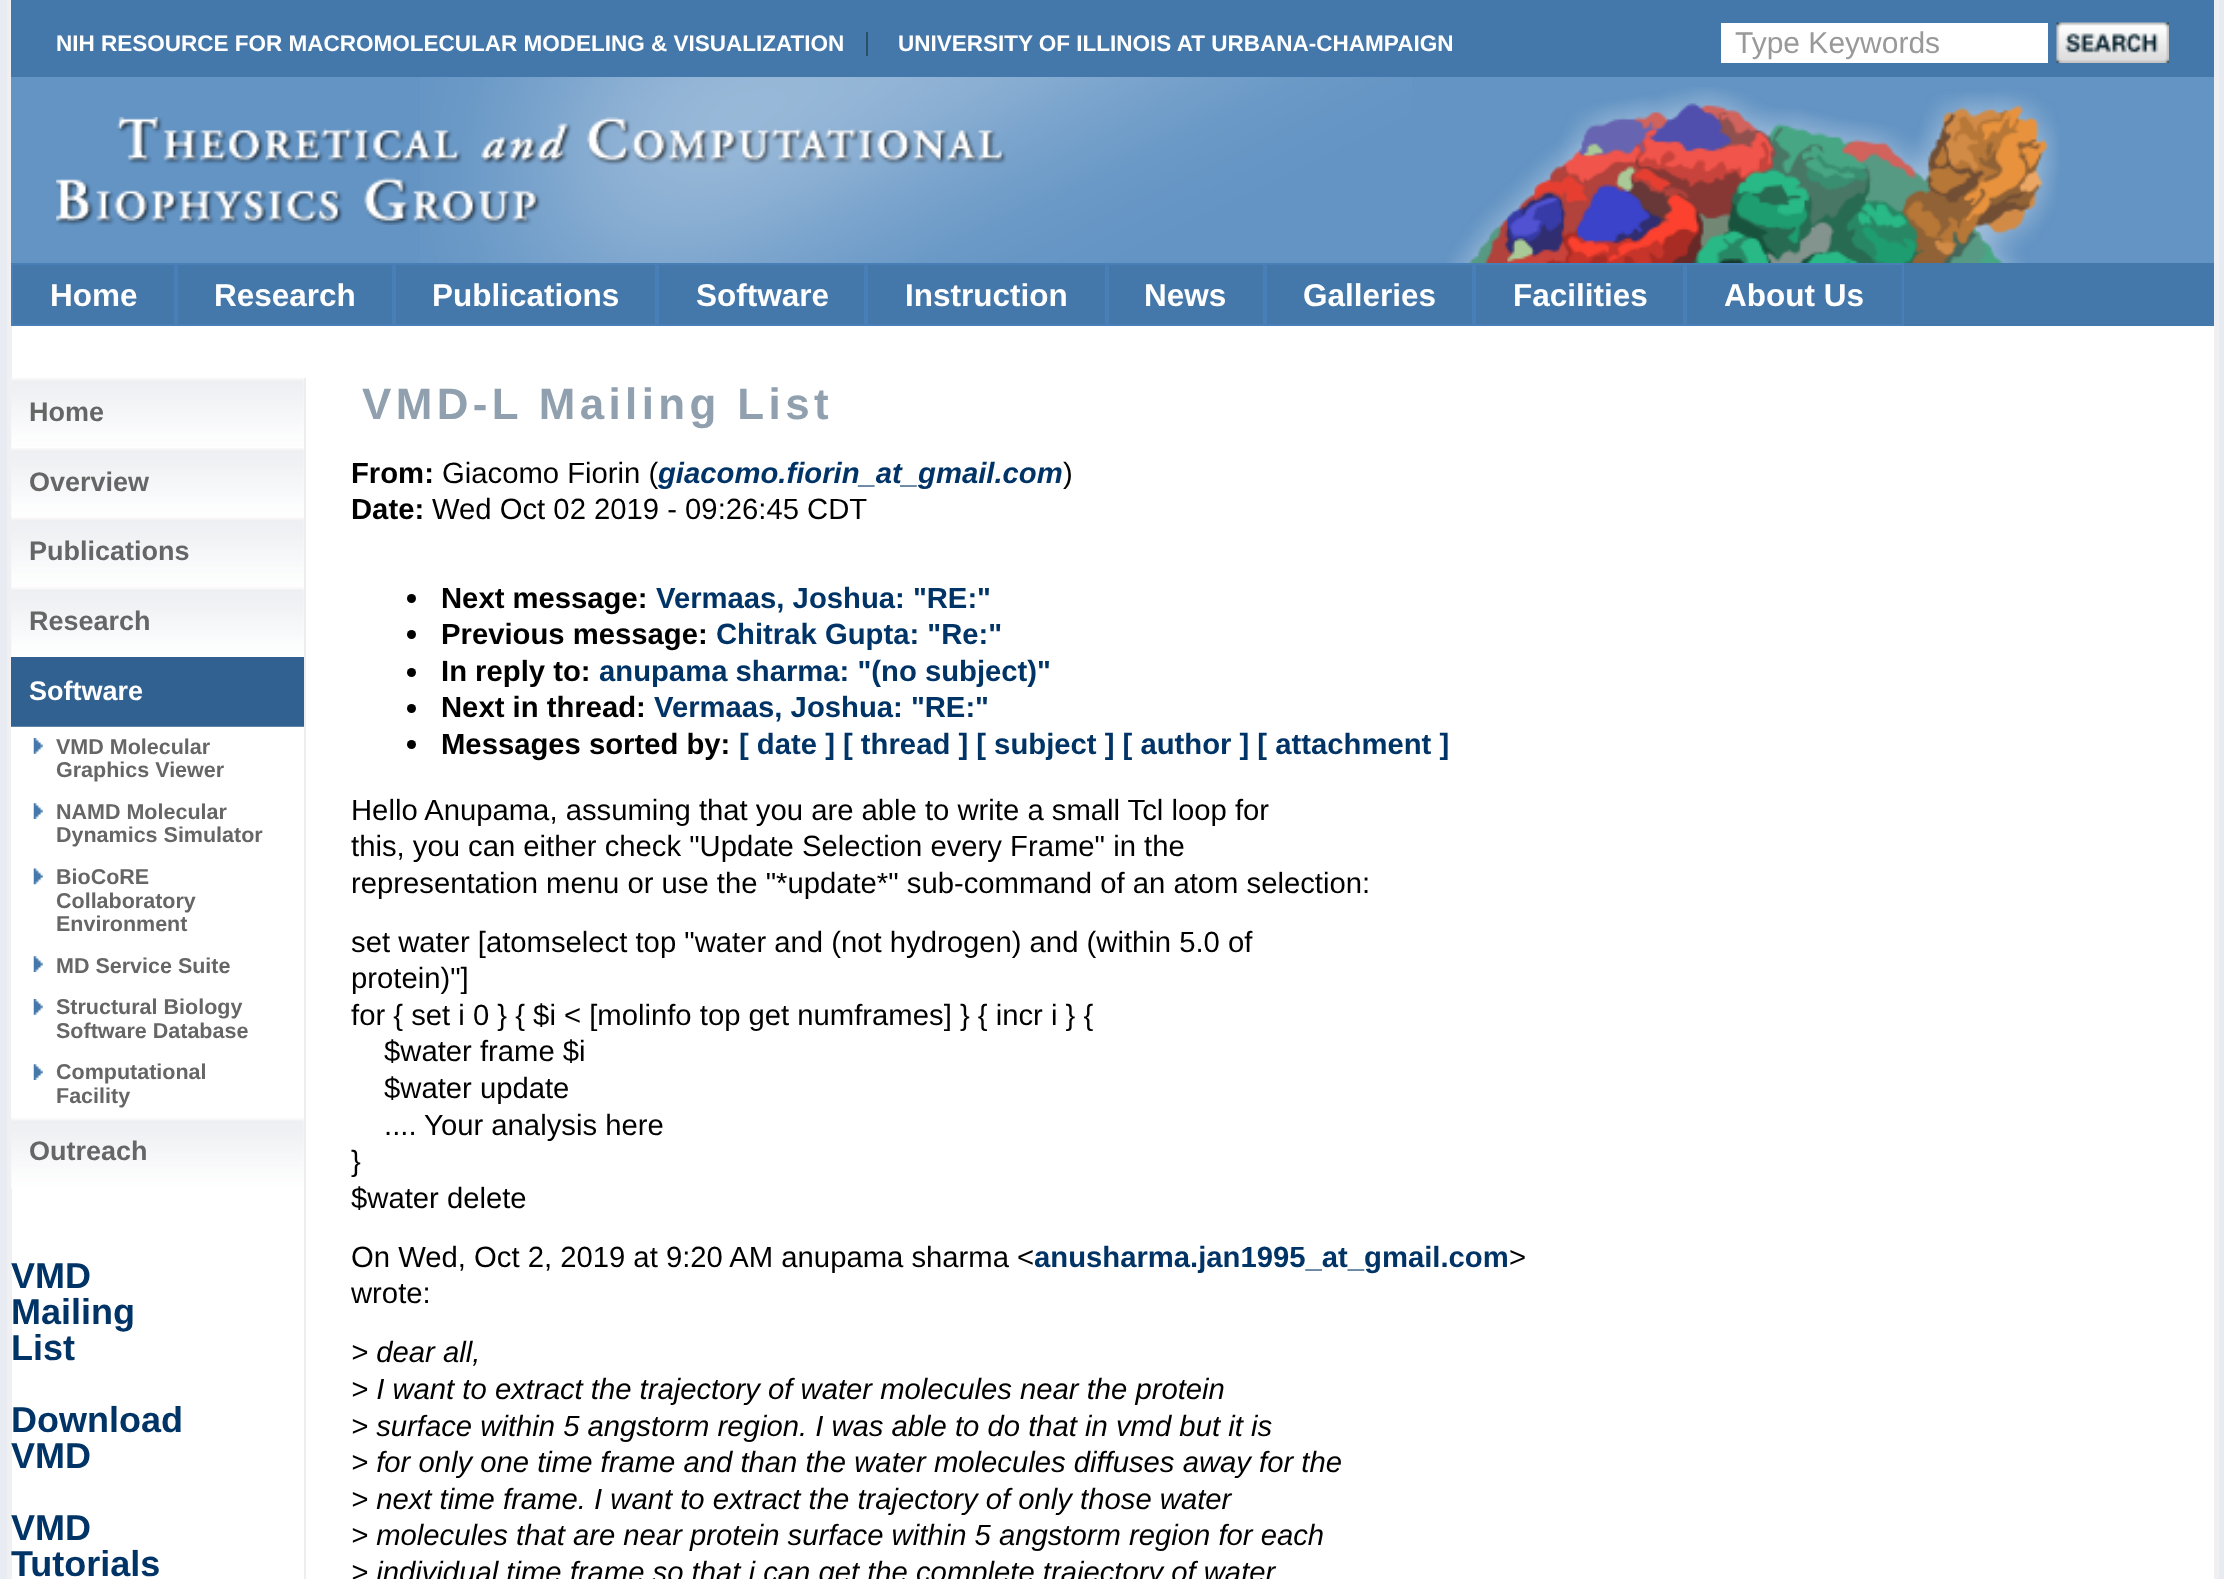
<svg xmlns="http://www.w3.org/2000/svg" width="2224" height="1579">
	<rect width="100%" height="100%" fill="#E8EBF1" />
	<rect x="12" y="326" width="2202" height="1253" fill="#FFFFFF" />
	<rect x="2214" y="0" width="5" height="1579" fill="#F0F0F2" />
	<rect x="7" y="0" width="5" height="1579" fill="#F0F0F2" />
	<rect x="11" y="77" width="2203" height="186" fill="#6394C4" />
	<image x="420" y="77" width="992" height="186" href="assets/img1.png" />
	<rect x="11" y="0" width="2203" height="77" fill="#4477AA" />
	<text x="56" y="51" font-family="Liberation Sans" font-size="22.5" font-weight="700" fill="#FFFFFF">NIH RESOURCE FOR MACROMOLECULAR MODELING &amp; VISUALIZATION</text>
	<rect x="866" y="32" width="2" height="24" fill="#2A5063" />
	<text x="898" y="51" font-family="Liberation Sans" font-size="22.5" font-weight="700" fill="#FFFFFF">UNIVERSITY OF ILLINOIS AT URBANA-CHAMPAIGN</text>
	<rect x="1721" y="23" width="327" height="40" fill="#FFFFFF" />
	<text x="1735" y="53" font-family="Liberation Sans" font-size="30" fill="#999999">Type Keywords</text>
	<image x="2056" y="22" width="113" height="41" href="assets/img2.png" />
	<image x="1447" y="87" width="613" height="176" href="assets/img3.png" />
	<image x="56" y="117" width="950" height="108" href="assets/img4.png" />
	<rect x="13" y="263" width="2201" height="63" fill="#4477AA" />
	<rect x="12" y="264" width="163" height="61" fill="none" stroke="#477FB6" stroke-width="2" />
	<text x="50" y="306" font-family="Liberation Sans" font-size="31.5" font-weight="700" fill="#FFFFFF">Home</text>
	<rect x="177" y="264" width="216" height="61" fill="none" stroke="#477FB6" stroke-width="2" />
	<text x="214" y="306" font-family="Liberation Sans" font-size="31.5" font-weight="700" fill="#FFFFFF">Research</text>
	<rect x="395" y="264" width="261" height="61" fill="none" stroke="#477FB6" stroke-width="2" />
	<text x="432" y="306" font-family="Liberation Sans" font-size="31.5" font-weight="700" fill="#FFFFFF">Publications</text>
	<rect x="658" y="264" width="207" height="61" fill="none" stroke="#477FB6" stroke-width="2" />
	<text x="696" y="306" font-family="Liberation Sans" font-size="31.5" font-weight="700" fill="#FFFFFF">Software</text>
	<rect x="867" y="264" width="239" height="61" fill="none" stroke="#477FB6" stroke-width="2" />
	<text x="905" y="306" font-family="Liberation Sans" font-size="31.5" font-weight="700" fill="#FFFFFF">Instruction</text>
	<rect x="1108" y="264" width="156" height="61" fill="none" stroke="#477FB6" stroke-width="2" />
	<text x="1144" y="306" font-family="Liberation Sans" font-size="31.5" font-weight="700" fill="#FFFFFF">News</text>
	<rect x="1266" y="264" width="207" height="61" fill="none" stroke="#477FB6" stroke-width="2" />
	<text x="1303" y="306" font-family="Liberation Sans" font-size="31.5" font-weight="700" fill="#FFFFFF">Galleries</text>
	<rect x="1475" y="264" width="209" height="61" fill="none" stroke="#477FB6" stroke-width="2" />
	<text x="1513" y="306" font-family="Liberation Sans" font-size="31.5" font-weight="700" fill="#FFFFFF">Facilities</text>
	<rect x="1686" y="264" width="217" height="61" fill="none" stroke="#477FB6" stroke-width="2" />
	<text x="1724" y="306" font-family="Liberation Sans" font-size="31.5" font-weight="700" fill="#FFFFFF">About Us</text>
	<image x="11" y="378" width="293" height="70" href="assets/img5.png" />
	<text x="29" y="421" font-family="Liberation Sans" font-size="27" font-weight="700" fill="#666666">Home</text>
	<image x="11" y="448" width="293" height="70" href="assets/img6.png" />
	<text x="29" y="491" font-family="Liberation Sans" font-size="27" font-weight="700" fill="#666666">Overview</text>
	<image x="11" y="517" width="293" height="70" href="assets/img7.png" />
	<text x="29" y="560" font-family="Liberation Sans" font-size="27" font-weight="700" fill="#666666">Publications</text>
	<image x="11" y="587" width="293" height="70" href="assets/img8.png" />
	<text x="29" y="630" font-family="Liberation Sans" font-size="27" font-weight="700" fill="#666666">Research</text>
	<rect x="11" y="657" width="293" height="70" fill="#306191" />
	<text x="29" y="700" font-family="Liberation Sans" font-size="27" font-weight="700" fill="#FFFFFF">Software</text>
	<image x="11" y="726" width="293" height="1" href="assets/img9.png" />
	<rect x="11" y="727" width="1" height="391" fill="#FFFFFF" />
	<image x="33" y="738" width="10" height="16" href="assets/img10.png" />
	<g font-family="Liberation Sans" font-size="21.5" font-weight="700" fill="#666666">
		<text x="56" y="754">VMD Molecular</text>
		<text x="56" y="777">Graphics Viewer</text>
	</g>
	<image x="33" y="803" width="10" height="16" href="assets/img11.png" />
	<g font-family="Liberation Sans" font-size="21.5" font-weight="700" fill="#666666">
		<text x="56" y="819">NAMD Molecular</text>
		<text x="56" y="842">Dynamics Simulator</text>
	</g>
	<image x="33" y="868" width="10" height="17" href="assets/img12.png" />
	<g font-family="Liberation Sans" font-size="21.5" font-weight="700" fill="#666666">
		<text x="56" y="884">BioCoRE</text>
		<text x="56" y="908">Collaboratory</text>
		<text x="56" y="931">Environment</text>
	</g>
	<image x="33" y="956" width="10" height="16" href="assets/img11.png" />
	<text x="56" y="973" font-family="Liberation Sans" font-size="21.5" font-weight="700" fill="#666666">MD Service Suite</text>
	<image x="33" y="999" width="10" height="16" href="assets/img10.png" />
	<g font-family="Liberation Sans" font-size="21.5" font-weight="700" fill="#666666">
		<text x="56" y="1014">Structural Biology</text>
		<text x="56" y="1038">Software Database</text>
	</g>
	<image x="33" y="1064" width="10" height="16" href="assets/img11.png" />
	<g font-family="Liberation Sans" font-size="21.5" font-weight="700" fill="#666666">
		<text x="56" y="1079">Computational</text>
		<text x="56" y="1103">Facility</text>
	</g>
	<image x="11" y="1118" width="293" height="70" href="assets/img8.png" />
	<text x="29" y="1160" font-family="Liberation Sans" font-size="27" font-weight="700" fill="#666666">Outreach</text>
	<g font-family="Liberation Sans" font-size="36" font-weight="700" fill="#003366">
		<text x="11" y="1288">VMD</text>
		<text x="11" y="1324">Mailing</text>
		<text x="11" y="1360">List</text>
		<text x="11" y="1432">Download</text>
		<text x="11" y="1468">VMD</text>
		<text x="11" y="1540">VMD</text>
		<text x="11" y="1576">Tutorials</text>
	</g>
	<rect x="304" y="378" width="2" height="1201" fill="#EEEEEE" />
	<text x="362" y="419" font-family="Liberation Sans" font-size="43.9" font-weight="700" letter-spacing="4.4" fill="#90A0AE">VMD-L Mailing List</text>
	<text x="351" y="483" font-family="Liberation Sans" font-size="29.25" font-weight="700" fill="#000000">From:</text>
	<text x="442" y="483" font-family="Liberation Sans" font-size="29.25" fill="#000000">Giacomo Fiorin (</text>
	<text x="658" y="483" font-family="Liberation Sans" font-size="29.25" font-weight="700" font-style="italic" fill="#003366">giacomo.fiorin_at_gmail.com</text>
	<text x="1063" y="483" font-family="Liberation Sans" font-size="29.25" fill="#000000">)</text>
	<text x="351" y="519" font-family="Liberation Sans" font-size="29.25" font-weight="700" fill="#000000">Date:</text>
	<text x="432" y="519" font-family="Liberation Sans" font-size="29.25" fill="#000000">Wed Oct 02 2019 - 09:26:45 CDT</text>
	<circle cx="411.5" cy="598.5" r="4.5" fill="#000000" />
	<text x="441" y="608" font-family="Liberation Sans" font-size="29.25" font-weight="700" fill="#000000">Next message:</text>
	<text x="656" y="608" font-family="Liberation Sans" font-size="29.25" font-weight="700" fill="#003366">Vermaas, Joshua: "RE:"</text>
	<circle cx="411.5" cy="634.5" r="4.5" fill="#000000" />
	<text x="441" y="644" font-family="Liberation Sans" font-size="29.25" font-weight="700" fill="#000000">Previous message:</text>
	<text x="716" y="644" font-family="Liberation Sans" font-size="29.25" font-weight="700" fill="#003366">Chitrak Gupta: "Re:"</text>
	<circle cx="411.5" cy="672.5" r="4.5" fill="#000000" />
	<text x="441" y="681" font-family="Liberation Sans" font-size="29.25" font-weight="700" fill="#000000">In reply to:</text>
	<text x="599" y="681" font-family="Liberation Sans" font-size="29.25" font-weight="700" fill="#003366">anupama sharma: "(no subject)"</text>
	<circle cx="411.5" cy="708.5" r="4.5" fill="#000000" />
	<text x="441" y="717" font-family="Liberation Sans" font-size="29.25" font-weight="700" fill="#000000">Next in thread:</text>
	<text x="654" y="717" font-family="Liberation Sans" font-size="29.25" font-weight="700" fill="#003366">Vermaas, Joshua: "RE:"</text>
	<circle cx="411.5" cy="744.5" r="4.5" fill="#000000" />
	<text x="441" y="754" font-family="Liberation Sans" font-size="29.25" font-weight="700" fill="#000000">Messages sorted by:</text>
	<text x="739" y="754" font-family="Liberation Sans" font-size="29.25" font-weight="700" fill="#003366">[ date ] [ thread ] [ subject ] [ author ] [ attachment ]</text>
	<g font-family="Liberation Sans" font-size="29.25" fill="#000000">
		<text x="351" y="820">Hello Anupama, assuming that you are able to write a small Tcl loop for</text>
		<text x="351" y="856">this, you can either check "Update Selection every Frame" in the</text>
		<text x="351" y="893">representation menu or use the "*update*" sub-command of an atom selection:</text>
		<text x="351" y="952">set water [atomselect top "water and (not hydrogen) and (within 5.0 of</text>
		<text x="351" y="988">protein)"]</text>
		<text x="351" y="1025">for { set i 0 } { $i &lt; [molinfo top get numframes] } { incr i } {</text>
		<text x="384" y="1061">$water frame $i</text>
		<text x="384" y="1098">$water update</text>
		<text x="384" y="1135">.... Your analysis here</text>
		<text x="351" y="1171">}</text>
		<text x="351" y="1208">$water delete</text>
		<text x="351" y="1267">On Wed, Oct 2, 2019 at 9:20 AM anupama sharma &lt;</text>
	</g>
	<text x="1034" y="1267" font-family="Liberation Sans" font-size="29.25" font-weight="700" fill="#003366">anusharma.jan1995_at_gmail.com</text>
	<g font-family="Liberation Sans" font-size="29.25" fill="#000000">
		<text x="1509" y="1267">&gt;</text>
		<text x="351" y="1303">wrote:</text>
	</g>
	<g font-family="Liberation Sans" font-size="29.25" font-style="italic" fill="#000000">
		<text x="351" y="1362">&gt; dear all,</text>
		<text x="351" y="1399">&gt; I want to extract the trajectory of water molecules near the protein</text>
		<text x="351" y="1436">&gt; surface within 5 angstorm region. I was able to do that in vmd but it is</text>
		<text x="351" y="1472">&gt; for only one time frame and than the water molecules diffuses away for the</text>
		<text x="351" y="1509">&gt; next time frame. I want to extract the trajectory of only those water</text>
		<text x="351" y="1545">&gt; molecules that are near protein surface within 5 angstorm region for each</text>
		<text x="351" y="1582">&gt; individual time frame so that i can get the complete trajectory of water</text>
	</g>
</svg>
